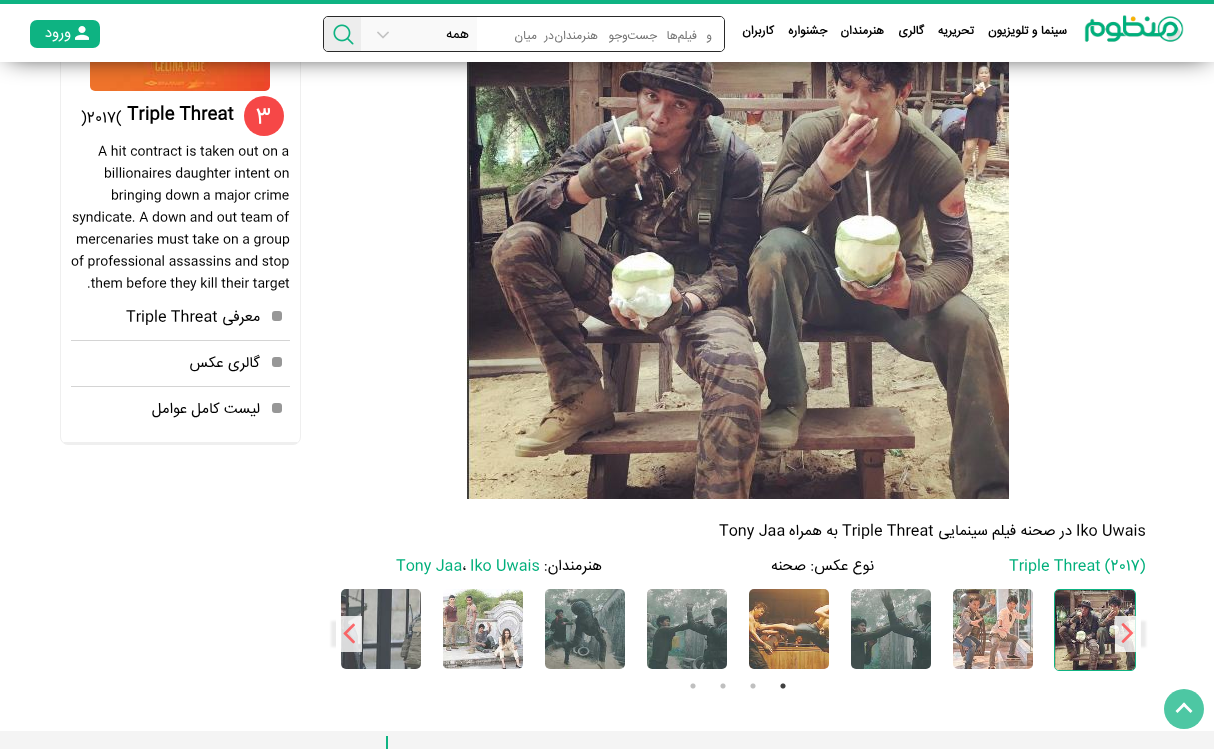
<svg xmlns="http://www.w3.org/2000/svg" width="1214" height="749">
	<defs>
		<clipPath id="clip1"><path d="M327 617H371V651H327ZM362 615.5V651.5H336V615.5Z" clip-rule="evenodd" /></clipPath>
		<clipPath id="clip2"><path d="M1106 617H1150V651H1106ZM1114.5 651.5V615.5H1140.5V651.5Z" clip-rule="evenodd" /></clipPath>
	</defs>
	<rect width="100%" height="100%" fill="#FFFFFF" />
	<rect x="60.5" y="-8.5" width="240" height="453" rx="7.5" fill="none" stroke="#EFEFEF" />
	<image x="90" y="62" width="180" height="29" href="assets/img5.png" />
	<image x="467" y="62" width="542" height="437" href="assets/img6.png" />
	<rect x="9" y="9" width="1198" height="46" fill="#000000" filter="blur(13px)" />
	<rect x="0" y="4" width="1214" height="58" fill="#FFFFFF" />
	<rect x="0" y="0" width="1214" height="4" fill="#0EB382" />
	<rect x="30" y="20" width="70" height="28" rx="7" fill="#0EB382" />
	<text x="71" y="37" font-family="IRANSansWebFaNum" font-size="15" direction="rtl" fill="#FFFFFF">ورود</text>
	<image x="75" y="26" width="14" height="14" href="assets/img1.png" />
	<rect x="323.5" y="16.5" width="401" height="35" rx="4.5" fill="none" stroke="#292929" />
	<path d="M328 17H361V51H328C326 51 324 49 324 47V21C324 19 326 17 328 17Z" fill="#EDEDED" />
	<image x="333" y="24" width="21" height="21" href="assets/img2.png" />
	<rect x="361" y="17" width="116" height="34" fill="#F9F9F9" />
	<image x="377" y="31" width="12" height="8" href="assets/img3.png" />
	<text x="469" y="38" font-family="IRANSansWebFaNum" font-size="14" direction="rtl" fill="#000000">همه</text>
	<path d="M484 17H720C722 17 724 19 724 21V47C724 49 722 51 720 51H484Z" fill="#FFFFFF" />
	<g font-family="IRANSansWebFaNum" font-size="12" direction="rtl" fill="#757575">
		<text x="554" y="39" word-spacing="4">در میان</text>
		<text x="598" y="39">هنرمندان</text>
		<text x="712" y="39" word-spacing="6">و فیلم‌ها جست‌وجو</text>
	</g>
	<g font-family="IRANSansWebFaNum" font-size="12" font-weight="700" direction="rtl" fill="#000000">
		<text x="774" y="34">کاربران</text>
		<text x="827" y="34">جشنواره</text>
		<text x="884" y="34">هنرمندان</text>
		<text x="924" y="34">گالری</text>
		<text x="974" y="34">تحریریه</text>
		<text x="1067" y="34">سینما و تلویزیون</text>
	</g>
	<image x="1084" y="15" width="100" height="27" href="assets/img4.png" />
	<rect x="64" y="442" width="233" height="2" fill="#EFEFEF" />
	<text x="81" y="122" font-family="IRANSansWebFaNum" font-size="15" fill="#000000">)2017(</text>
	<text x="127" y="119" font-family="IRANSansWebFaNum" font-size="17.5" font-weight="700" fill="#000000">Triple Threat</text>
	<circle cx="264" cy="116" r="20" fill="#F64747" />
	<text x="256" y="123" font-family="IRANSansWebFaNum" font-size="22" fill="#FFFFFF">3</text>
	<g font-family="IRANSansWebFaNum" font-size="13" fill="#000000">
		<text x="98" y="155">A hit contract is taken out on a</text>
		<text x="104" y="177">billionaires daughter intent on</text>
		<text x="111" y="199">bringing down a major crime</text>
		<text x="72" y="221">syndicate. A down and out team of</text>
		<text x="76" y="243">mercenaries must take on a group</text>
		<text x="71" y="265">of professional assassins and stop</text>
		<text x="87" y="287">.them before they kill their target</text>
	</g>
	<rect x="71" y="340" width="219" height="1" fill="#D4D4D4" />
	<text x="126" y="321" font-family="IRANSansWebFaNum" font-size="15" fill="#000000">Triple Threat</text>
	<text x="260" y="321" font-family="IRANSansWebFaNum" font-size="15" direction="rtl" fill="#000000">معرفی</text>
	<rect x="272" y="311" width="10" height="10" rx="3" fill="#979797" />
	<rect x="71" y="386" width="219" height="1" fill="#D4D4D4" />
	<text x="260" y="367" font-family="IRANSansWebFaNum" font-size="15" direction="rtl" fill="#000000">گالری عکس</text>
	<rect x="272" y="357" width="10" height="10" rx="3" fill="#979797" />
	<text x="260" y="413" font-family="IRANSansWebFaNum" font-size="15" direction="rtl" fill="#000000">لیست کامل عوامل</text>
	<rect x="272" y="403" width="10" height="10" rx="3" fill="#979797" />
	<text x="719" y="535" font-family="IRANSansWebFaNum" font-size="15" fill="#000000">Tony Jaa</text>
	<text x="838" y="535" font-family="IRANSansWebFaNum" font-size="15" direction="rtl" fill="#000000">به همراه</text>
	<text x="842" y="535" font-family="IRANSansWebFaNum" font-size="15" fill="#000000">Triple Threat</text>
	<text x="1072" y="535" font-family="IRANSansWebFaNum" font-size="15" direction="rtl" fill="#000000">در صحنه فیلم سینمایی</text>
	<text x="1076" y="535" font-family="IRANSansWebFaNum" font-size="15" fill="#000000">Iko Uwais</text>
	<text x="396" y="570" font-family="IRANSansWebFaNum" font-size="15" fill="#00AF7B">Tony Jaa</text>
	<text x="462" y="570" font-family="IRANSansWebFaNum" font-size="15" fill="#000000">،</text>
	<text x="470" y="570" font-family="IRANSansWebFaNum" font-size="15" fill="#00AF7B">Iko Uwais</text>
	<g font-family="IRANSansWebFaNum" font-size="15" direction="rtl" fill="#000000">
		<text x="602" y="570">هنرمندان:</text>
		<text x="806" y="570">صحنه</text>
		<text x="874" y="570">نوع عکس:</text>
	</g>
	<text x="1009" y="570" font-family="IRANSansWebFaNum" font-size="15" fill="#00AF7B">Triple Threat (2017)</text>
	<image x="341" y="589" width="80" height="80" href="assets/img7.png" />
	<image x="443" y="589" width="80" height="80" href="assets/img8.png" />
	<image x="545" y="589" width="80" height="80" href="assets/img9.png" />
	<image x="647" y="589" width="80" height="80" href="assets/img10.png" />
	<image x="749" y="589" width="80" height="80" href="assets/img11.png" />
	<image x="851" y="589" width="80" height="80" href="assets/img12.png" />
	<image x="953" y="589" width="80" height="80" href="assets/img13.png" />
	<rect x="1054.5" y="589.5" width="81" height="81" rx="4.5" fill="none" stroke="#0EB382" />
	<image x="1055" y="590" width="80" height="80" href="assets/img14.png" />
	<g clip-path="url(#clip1)">
		<rect x="331" y="621" width="36" height="26" fill="#000000" fill-opacity="0.08" filter="blur(1px)" />
	</g>
	<rect x="341" y="616" width="21" height="36" fill="#FFFFFF" fill-opacity="0.8" />
	<image x="343" y="623" width="12" height="21" href="assets/img15.png" />
	<g clip-path="url(#clip2)">
		<rect x="1110" y="621" width="36" height="26" fill="#000000" fill-opacity="0.08" filter="blur(1px)" />
	</g>
	<rect x="1115" y="616" width="26" height="36" fill="#FFFFFF" fill-opacity="0.8" />
	<image x="1121" y="623" width="13" height="20" href="assets/img16.png" />
	<image x="690" y="683" width="6" height="6" href="assets/img17.png" />
	<image x="720" y="683" width="6" height="6" href="assets/img17.png" />
	<image x="750" y="683" width="6" height="6" href="assets/img17.png" />
	<image x="780" y="683" width="6" height="6" href="assets/img18.png" />
	<circle cx="1184" cy="709" r="20" fill="#4DC7A3" />
	<path d="M1175.5 711L1184 702.5L1186 704.5L1177.5 713Z" fill="#FFFFFF" />
	<path d="M1182 704.5L1184 702.5L1192.5 711L1190.5 713Z" fill="#FFFFFF" />
	<rect x="0" y="731" width="1214" height="18" fill="#F4F4F4" />
	<rect x="386" y="736" width="2" height="13" fill="#0EB382" />
</svg>
